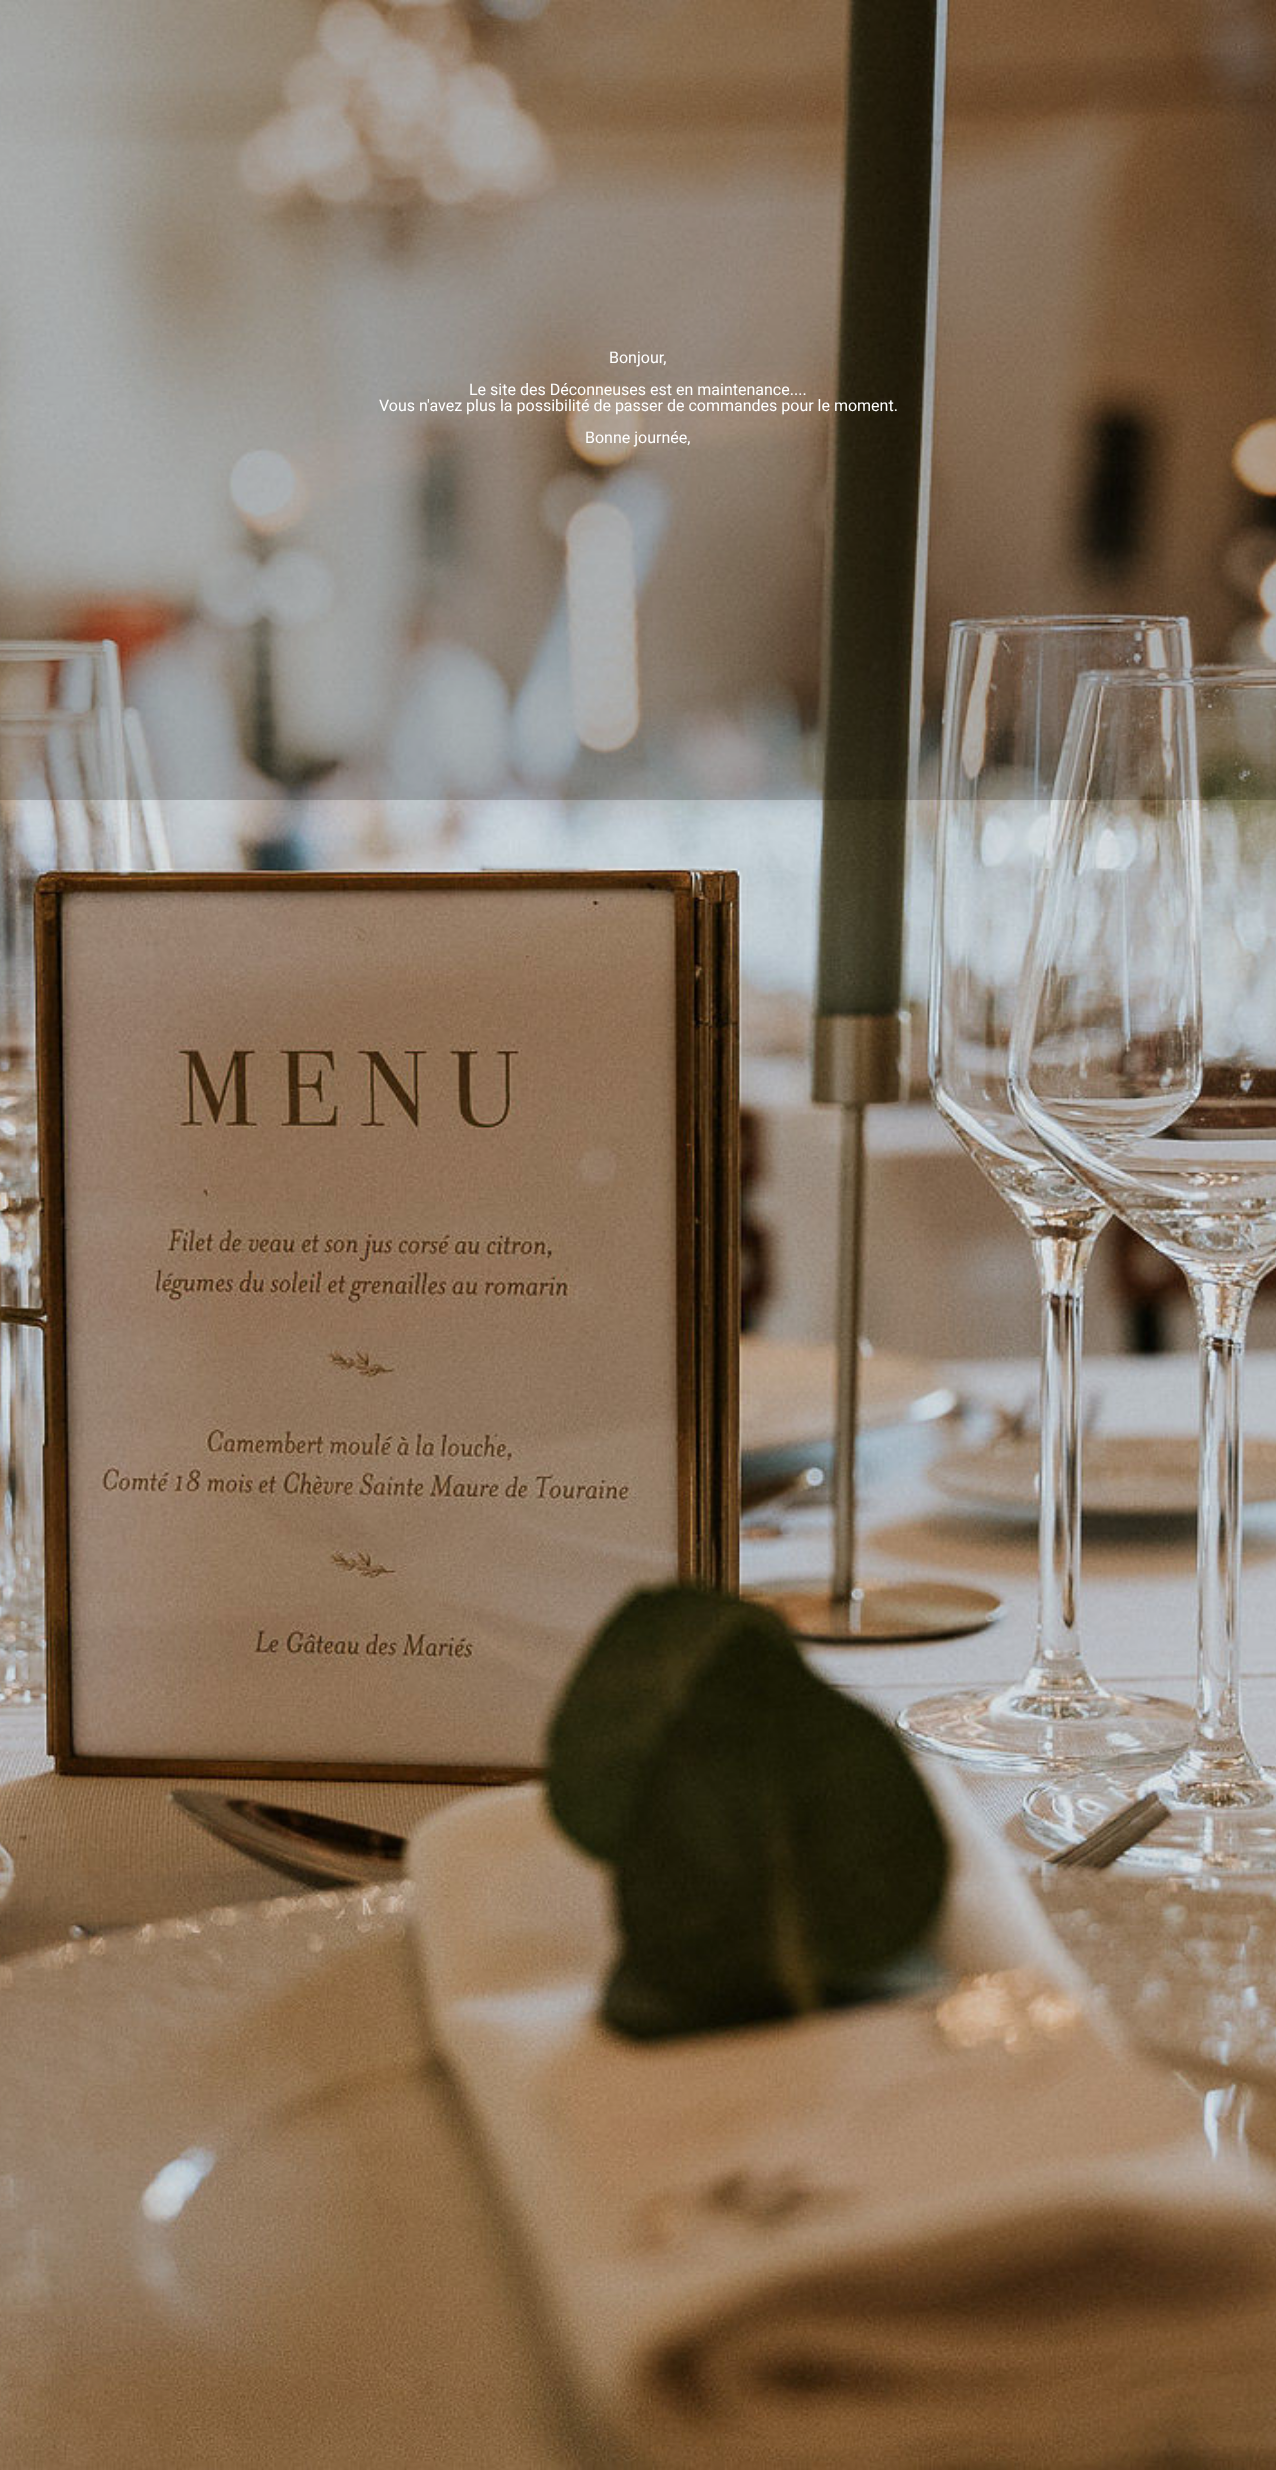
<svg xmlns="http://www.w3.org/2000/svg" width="1276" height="2470">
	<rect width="100%" height="100%" fill="#FFFFFF" />
	<image x="0" y="0" width="1276" height="2470" href="assets/img1.png" />
	<rect x="0" y="0" width="1276" height="800" fill="#000000" fill-opacity="0.2" />
	<g font-family="Roboto" font-size="16" fill="#FFFFFF">
		<text x="609" y="363">Bonjour,</text>
		<text x="469" y="395">Le site des Déconneuses est en maintenance....</text>
		<text x="379" y="411">Vous n'avez plus la possibilité de passer de commandes pour le moment.</text>
		<text x="585" y="443">Bonne journée,</text>
	</g>
</svg>
